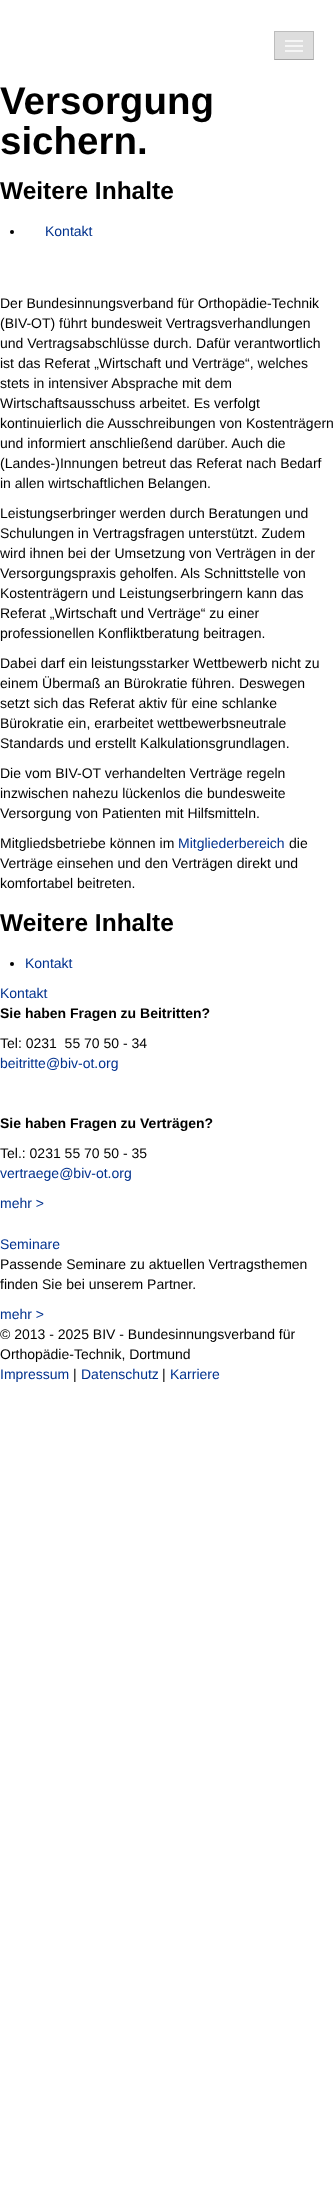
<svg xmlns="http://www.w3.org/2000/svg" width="334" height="2188">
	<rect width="100%" height="100%" fill="#FFFFFF" />
	<rect x="274" y="31" width="40" height="29" fill="#DDDDDD" />
	<path d="M274 31H314L313 32H275Z" fill="#BCBCBC" />
	<path d="M314 31V60L313 59V32Z" fill="#000000" fill-opacity="0.15" />
	<path d="M314 60H274L275 59H313Z" fill="#000000" fill-opacity="0.25" />
	<path d="M274 60V31L275 32V59Z" fill="#000000" fill-opacity="0.15" />
	<rect x="285" y="40" width="18" height="2" fill="#F5F5F5" />
	<rect x="285" y="45" width="18" height="2" fill="#F5F5F5" />
	<rect x="285" y="50" width="18" height="2" fill="#F5F5F5" />
	<g font-family="Liberation Sans" font-size="38.5" font-weight="700" fill="#000000">
		<text x="0" y="114">Versorgung</text>
		<text x="0" y="154">sichern.</text>
	</g>
	<text x="0" y="199" font-family="Liberation Sans" font-size="24.5" font-weight="700" fill="#000000">Weitere Inhalte</text>
	<circle cx="12" cy="232" r="2" fill="#000000" />
	<text x="45" y="236" font-family="Liberation Sans" font-size="14" fill="#00318D">Kontakt</text>
	<g font-family="Liberation Sans" font-size="14" fill="#000000">
		<text x="0" y="308">Der Bundesinnungsverband für Orthopädie-Technik</text>
		<text x="0" y="328">(BIV-OT) führt bundesweit Vertragsverhandlungen</text>
		<text x="0" y="348">und Vertragsabschlüsse durch. Dafür verantwortlich</text>
		<text x="0" y="368">ist das Referat „Wirtschaft und Verträge“, welches</text>
		<text x="0" y="388">stets in intensiver Absprache mit dem</text>
		<text x="0" y="408">Wirtschaftsausschuss arbeitet. Es verfolgt</text>
		<text x="0" y="428">kontinuierlich die Ausschreibungen von Kostenträgern</text>
		<text x="0" y="448">und informiert anschließend darüber. Auch die</text>
		<text x="0" y="468">(Landes-)Innungen betreut das Referat nach Bedarf</text>
		<text x="0" y="488">in allen wirtschaftlichen Belangen.</text>
		<text x="0" y="518">Leistungserbringer werden durch Beratungen und</text>
		<text x="0" y="538">Schulungen in Vertragsfragen unterstützt. Zudem</text>
		<text x="0" y="558">wird ihnen bei der Umsetzung von Verträgen in der</text>
		<text x="0" y="578">Versorgungspraxis geholfen. Als Schnittstelle von</text>
		<text x="0" y="598">Kostenträgern und Leistungserbringern kann das</text>
		<text x="0" y="618">Referat „Wirtschaft und Verträge“ zu einer</text>
		<text x="0" y="638">professionellen Konfliktberatung beitragen.</text>
		<text x="0" y="668">Dabei darf ein leistungsstarker Wettbewerb nicht zu</text>
		<text x="0" y="688">einem Übermaß an Bürokratie führen. Deswegen</text>
		<text x="0" y="708">setzt sich das Referat aktiv für eine schlanke</text>
		<text x="0" y="728">Bürokratie ein, erarbeitet wettbewerbsneutrale</text>
		<text x="0" y="748">Standards und erstellt Kalkulationsgrundlagen.</text>
		<text x="0" y="778">Die vom BIV-OT verhandelten Verträge regeln</text>
		<text x="0" y="798">inzwischen nahezu lückenlos die bundesweite</text>
		<text x="0" y="818">Versorgung von Patienten mit Hilfsmitteln.</text>
		<text x="0" y="848">Mitgliedsbetriebe können im</text>
	</g>
	<text x="178" y="848" font-family="Liberation Sans" font-size="14" fill="#00318D">Mitgliederbereich</text>
	<g font-family="Liberation Sans" font-size="14" fill="#000000">
		<text x="289" y="848">die</text>
		<text x="0" y="868">Verträge einsehen und den Verträgen direkt und</text>
		<text x="0" y="888">komfortabel beitreten.</text>
	</g>
	<text x="0" y="931" font-family="Liberation Sans" font-size="24.5" font-weight="700" fill="#000000">Weitere Inhalte</text>
	<circle cx="12" cy="964" r="2" fill="#000000" />
	<g font-family="Liberation Sans" font-size="14" fill="#00318D">
		<text x="25" y="968">Kontakt</text>
		<text x="0" y="998">Kontakt</text>
	</g>
	<text x="0" y="1018" font-family="Liberation Sans" font-size="14" font-weight="700" fill="#000000">Sie haben Fragen zu Beitritten?</text>
	<text x="0" y="1048" font-family="Liberation Sans" font-size="14" fill="#000000" xml:space="preserve">Tel: 0231  55 70 50 - 34</text>
	<text x="0" y="1068" font-family="Liberation Sans" font-size="14" fill="#00318D">beitritte@biv-ot.org</text>
	<text x="0" y="1128" font-family="Liberation Sans" font-size="14" font-weight="700" fill="#000000">Sie haben Fragen zu Verträgen?</text>
	<text x="0" y="1158" font-family="Liberation Sans" font-size="14" fill="#000000">Tel.: 0231 55 70 50 - 35</text>
	<g font-family="Liberation Sans" font-size="14" fill="#00318D">
		<text x="0" y="1178">vertraege@biv-ot.org</text>
		<text x="0" y="1208">mehr &gt;</text>
		<text x="0" y="1249">Seminare</text>
	</g>
	<g font-family="Liberation Sans" font-size="14" fill="#000000">
		<text x="0" y="1269">Passende Seminare zu aktuellen Vertragsthemen</text>
		<text x="0" y="1289">finden Sie bei unserem Partner.</text>
	</g>
	<text x="0" y="1319" font-family="Liberation Sans" font-size="14" fill="#00318D">mehr &gt;</text>
	<g font-family="Liberation Sans" font-size="14" fill="#000000">
		<text x="0" y="1339">© 2013 - 2025 BIV - Bundesinnungsverband für</text>
		<text x="0" y="1359">Orthopädie-Technik, Dortmund</text>
	</g>
	<text x="0" y="1379" font-family="Liberation Sans" font-size="14" fill="#00318D">Impressum</text>
	<text x="73" y="1379" font-family="Liberation Sans" font-size="14" fill="#000000">|</text>
	<text x="81" y="1379" font-family="Liberation Sans" font-size="14" fill="#00318D">Datenschutz</text>
	<text x="162" y="1379" font-family="Liberation Sans" font-size="14" fill="#000000">|</text>
	<text x="170" y="1379" font-family="Liberation Sans" font-size="14" fill="#00318D">Karriere</text>
</svg>
